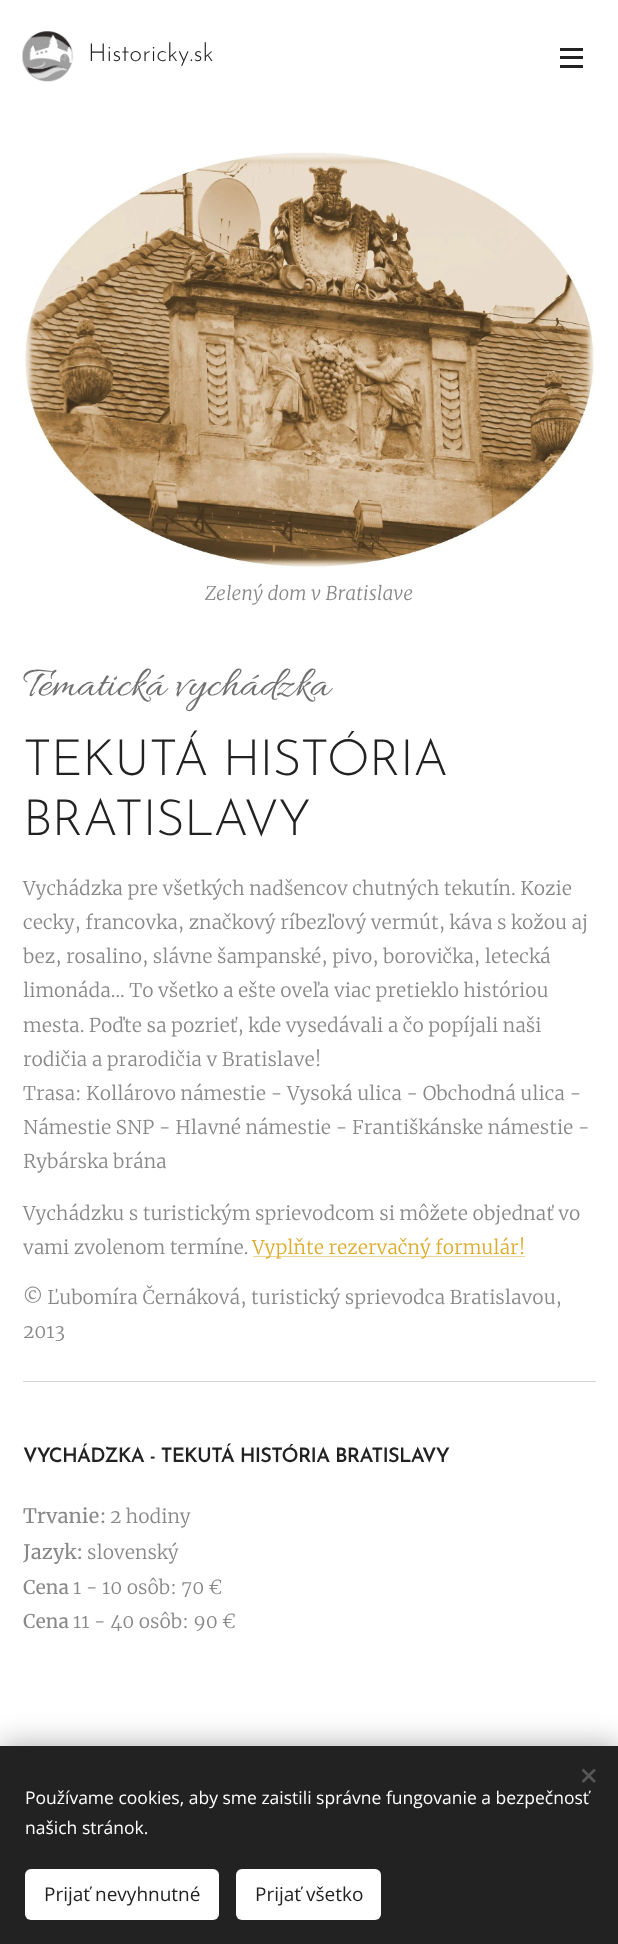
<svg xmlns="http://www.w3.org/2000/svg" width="618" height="1944">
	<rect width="100%" height="100%" fill="#FFFFFF" />
	<image x="22" y="31" width="51" height="51" href="assets/img1.png" />
	<text x="88" y="61" font-family="Josefin Sans" font-size="24.75" font-weight="300" fill="#222222">Historicky.sk</text>
	<rect x="560" y="56" width="23" height="3" fill="#222222" />
	<rect x="560" y="48" width="23" height="3" fill="#222222" />
	<rect x="560" y="65" width="23" height="3" fill="#222222" />
	<image x="25" y="152" width="569" height="416" href="assets/img2.png" />
	<text x="205" y="600" font-family="Merriweather" font-size="19" font-weight="300" font-style="italic" fill="#888888">Zelený dom v Bratislave</text>
	<text x="23" y="695" font-family="Allura" font-size="43.75" fill="#707070">Tematická vychádzka</text>
	<g font-family="Josefin Sans" font-size="50" font-weight="300" letter-spacing="-0.75" fill="#222222">
		<text x="23" y="775">TEKUTÁ HISTÓRIA</text>
		<text x="23" y="835">BRATISLAVY</text>
	</g>
	<g font-family="Merriweather" font-size="19" font-weight="300" fill="#888888">
		<text x="23" y="895">Vychádzka pre všetkých nadšencov chutných tekutín. Kozie</text>
		<text x="23" y="929">cecky, francovka, značkový ríbezľový vermút, káva s kožou aj</text>
		<text x="23" y="963">bez, rosalino, slávne šampanské, pivo, borovička, letecká</text>
		<text x="23" y="997">limonáda... To všetko a ešte oveľa viac pretieklo históriou</text>
		<text x="23" y="1032">mesta. Poďte sa pozrieť, kde vysedávali a čo popíjali naši</text>
		<text x="23" y="1066">rodičia a prarodičia v Bratislave!</text>
		<text x="23" y="1100">Trasa: Kollárovo námestie - Vysoká ulica - Obchodná ulica -</text>
		<text x="23" y="1134">Námestie SNP - Hlavné námestie - Františkánske námestie -</text>
		<text x="23" y="1168">Rybárska brána</text>
		<text x="23" y="1220">Vychádzku s turistickým sprievodcom si môžete objednať vo</text>
		<text x="23" y="1254">vami zvolenom termíne.</text>
	</g>
	<rect x="253" y="1256" width="272" height="1" fill="#EED595" />
	<text x="252" y="1254" font-family="Merriweather" font-size="19" font-weight="300" fill="#DCAB2B">Vyplňte rezervačný formulár!</text>
	<g font-family="Merriweather" font-size="19" font-weight="300" fill="#888888">
		<text x="23" y="1304">© Ľubomíra Černáková, turistický sprievodca Bratislavou,</text>
		<text x="23" y="1338">2013</text>
	</g>
	<rect x="23" y="1381" width="573" height="1" fill="#D4D4D4" />
	<text x="23" y="1462" font-family="Josefin Sans" font-size="20" font-weight="600" letter-spacing="-0.75" fill="#222222">VYCHÁDZKA - TEKUTÁ HISTÓRIA BRATISLAVY</text>
	<text x="23" y="1523" font-family="Merriweather" font-size="20" fill="#888888">Trvanie:</text>
	<text x="110" y="1523" font-family="Merriweather" font-size="19" font-weight="300" fill="#888888">2 hodiny</text>
	<text x="23" y="1559" font-family="Merriweather" font-size="20" fill="#888888">Jazyk:</text>
	<text x="87" y="1559" font-family="Merriweather" font-size="19" font-weight="300" fill="#888888">slovenský</text>
	<text x="23" y="1594" font-family="Merriweather" font-size="19" fill="#888888">Cena</text>
	<text x="73" y="1594" font-family="Merriweather" font-size="19" font-weight="300" fill="#888888">1 - 10 osôb: 70 €</text>
	<text x="23" y="1628" font-family="Merriweather" font-size="19" fill="#888888">Cena</text>
	<text x="73" y="1628" font-family="Merriweather" font-size="19" font-weight="300" fill="#888888">11 - 40 osôb: 90 €</text>
	<rect x="0" y="1746" width="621" height="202" fill="#000000" fill-opacity="0.33" filter="blur(15.5px)" />
	<rect x="0" y="1746" width="618" height="198" fill="#222222" />
	<path d="M581.5 1781L594 1768.5L596 1770.5L583.5 1783Z" fill="#555555" />
	<path d="M583.5 1768.5L596 1781L594 1783L581.5 1770.5Z" fill="#555555" />
	<g font-family="Open Sans" font-size="17.5" fill="#FFFFFF">
		<text x="25" y="1804">Používame cookies, aby sme zaistili správne fungovanie a bezpečnosť</text>
		<text x="25" y="1834">našich stránok.</text>
	</g>
	<rect x="25" y="1869" width="194" height="51" rx="6" fill="#FFFFFF" />
	<text x="44" y="1901" font-family="Open Sans" font-size="19" fill="#222222">Prijať nevyhnutné</text>
	<rect x="236" y="1869" width="145" height="51" rx="6" fill="#FFFFFF" />
	<text x="255" y="1901" font-family="Open Sans" font-size="19" fill="#222222">Prijať všetko</text>
</svg>
